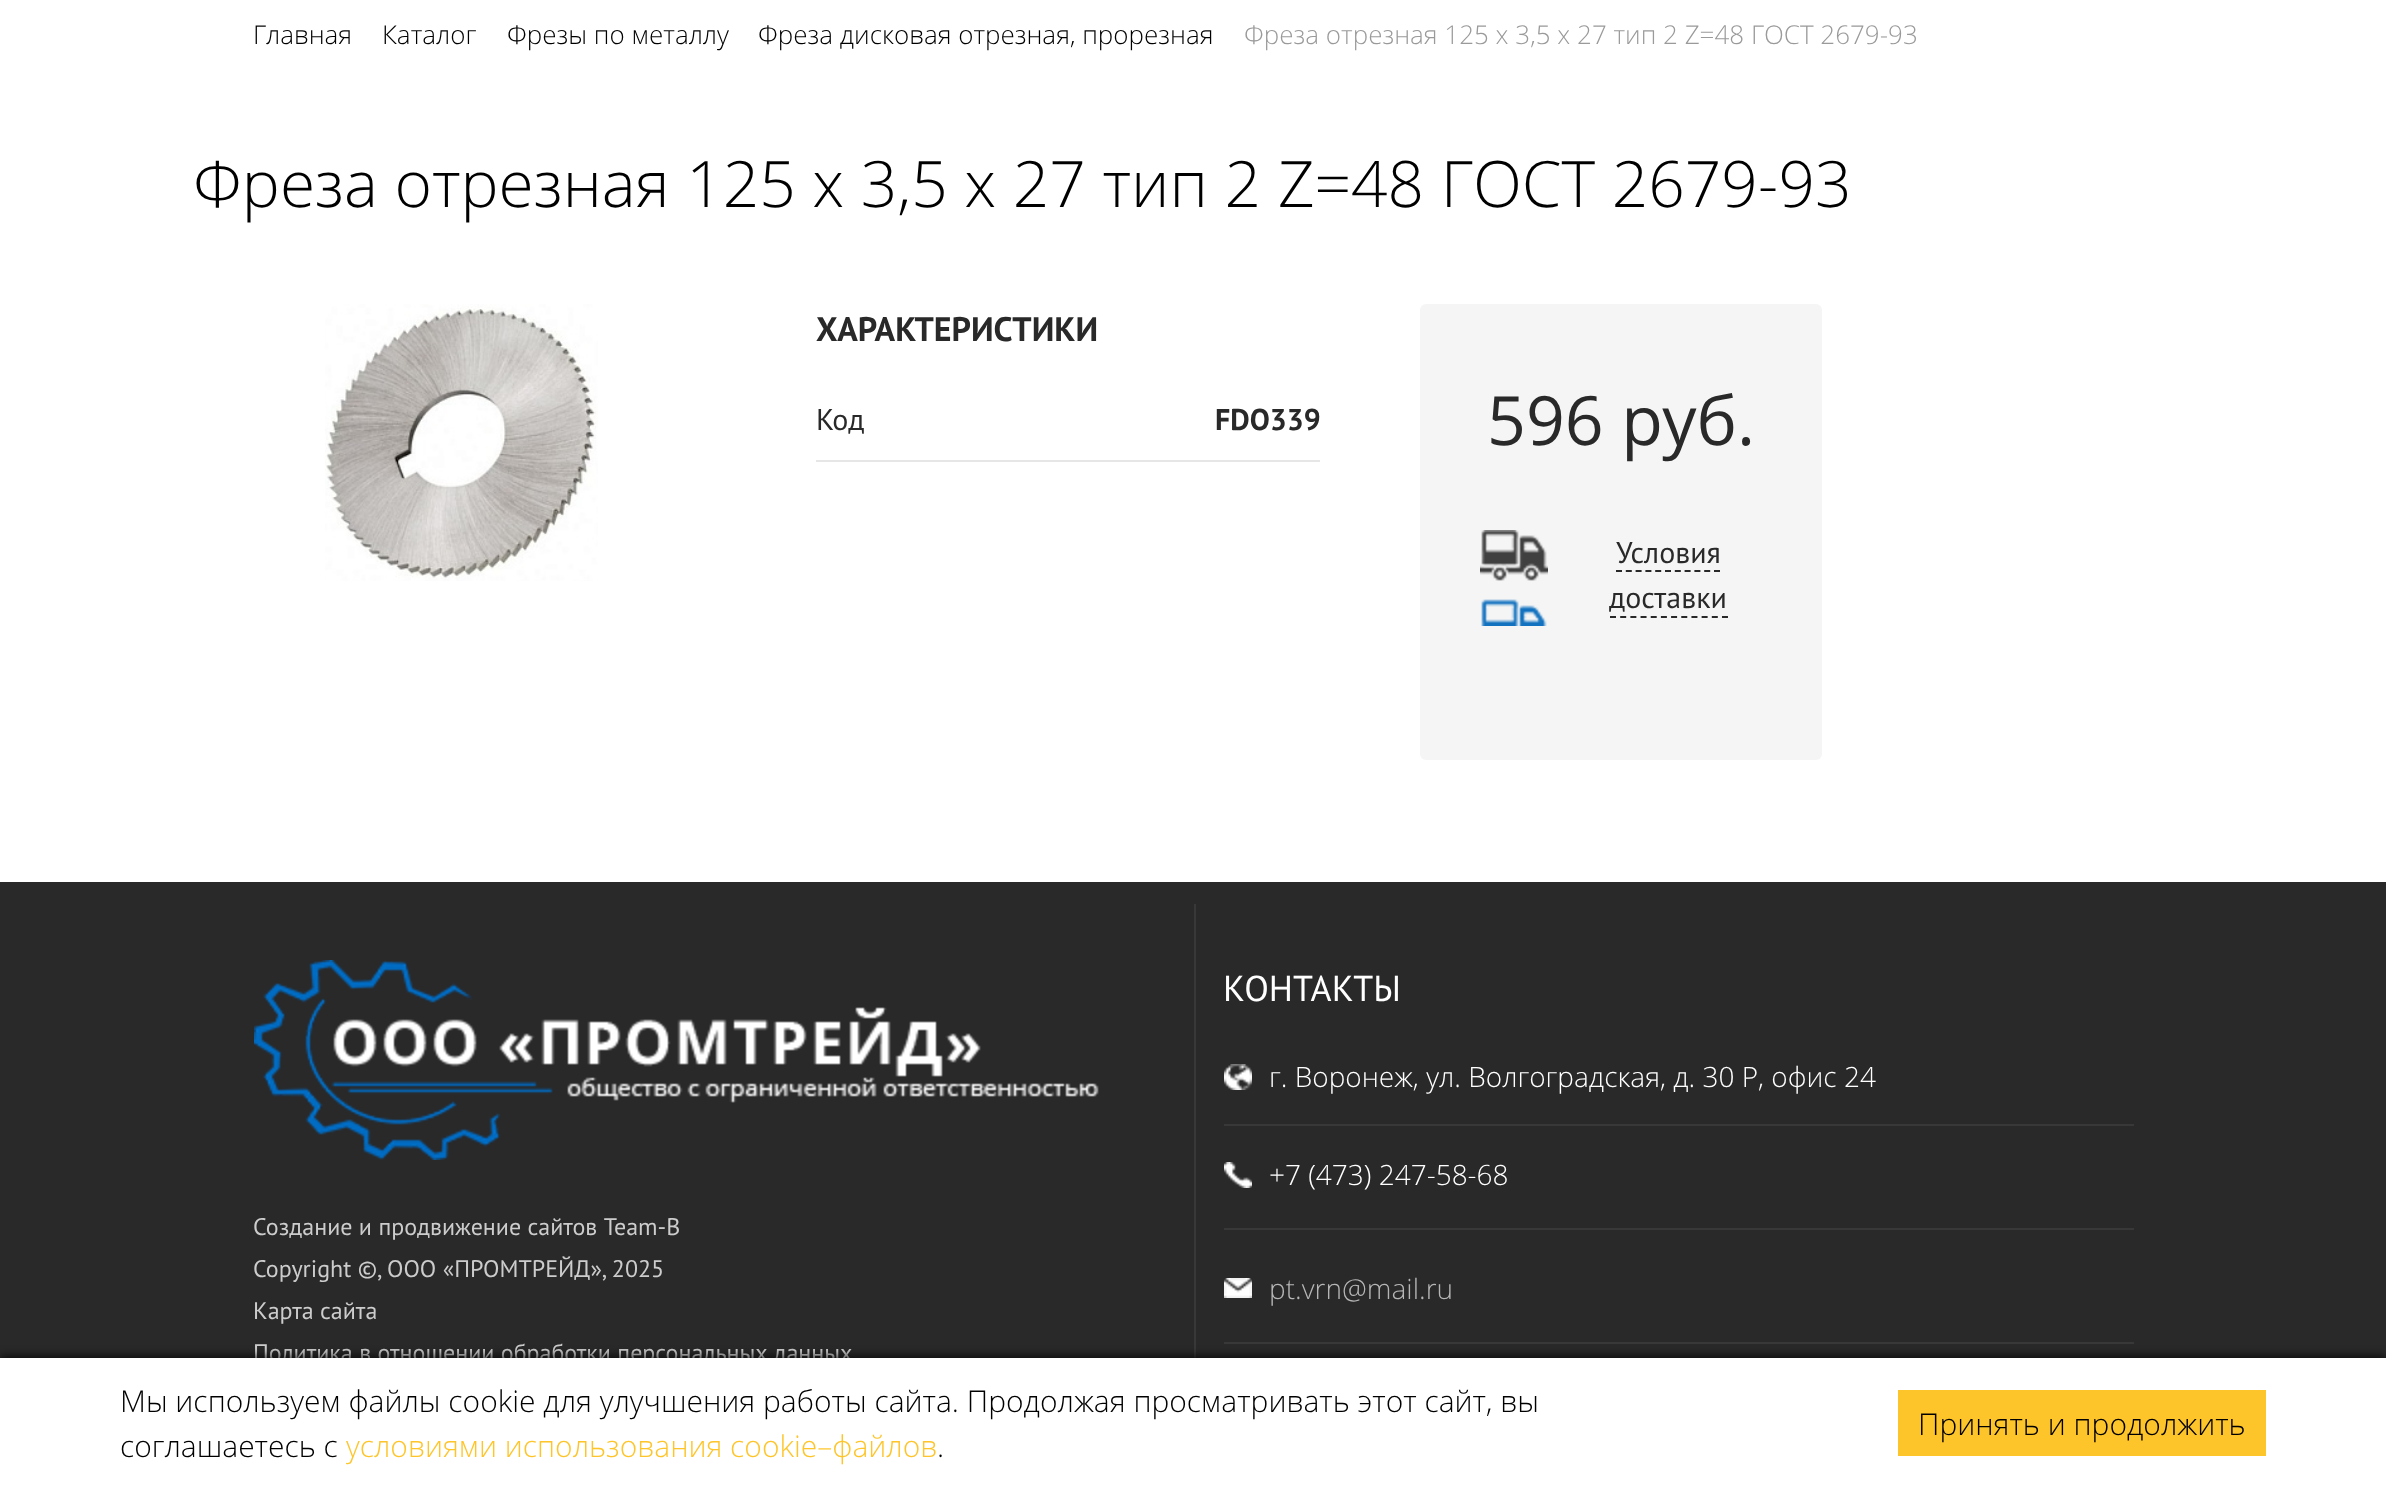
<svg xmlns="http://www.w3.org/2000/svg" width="2386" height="1488">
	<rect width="100%" height="100%" fill="#FFFFFF" />
	<g font-family="Open Sans" font-size="26" font-weight="300" fill="#000000">
		<text x="253" y="44">Главная</text>
		<text x="382" y="44">Каталог</text>
		<text x="507" y="44">Фрезы по металлу</text>
		<text x="758" y="44">Фреза дисковая отрезная, прорезная</text>
	</g>
	<text x="1244" y="44" font-family="Open Sans" font-size="26" font-weight="300" fill="#9A9A9A">Фреза отрезная 125 х 3,5 х 27 тип 2 Z=48 ГОСТ 2679-93</text>
	<text x="193" y="207" font-family="Open Sans" font-size="64" font-weight="300" fill="#000000">Фреза отрезная 125 х 3,5 х 27 тип 2 Z=48 ГОСТ 2679-93</text>
	<image x="325" y="304" width="273" height="277" href="assets/img1.png" />
	<text x="816" y="341" font-family="PT Sans" font-size="34" font-weight="700" fill="#292929">ХАРАКТЕРИСТИКИ</text>
	<rect x="816" y="460" width="504" height="2" fill="#E6E6E6" />
	<text x="816" y="430" font-family="PT Sans" font-size="30" fill="#292929">Код</text>
	<text x="1215" y="430" font-family="PT Sans" font-size="30" font-weight="700" fill="#292929">FDO339</text>
	<rect x="1420" y="304" width="402" height="456" rx="6" fill="#F5F5F5" />
	<text x="1487" y="445" font-family="Open Sans" font-size="68" fill="#292929">596 руб.</text>
	<image x="1480" y="530" width="68" height="96" href="assets/img2.png" />
	<text x="1616" y="563" font-family="PT Sans" font-size="30" fill="#292929">Условия</text>
	<path d="M1616 571H1720" fill="none" stroke="#292929" stroke-width="2" stroke-dasharray="6 3.8" />
	<text x="1609" y="608" font-family="PT Sans" font-size="30" fill="#292929">доставки</text>
	<path d="M1610 617H1728" fill="none" stroke="#292929" stroke-width="2" stroke-dasharray="6 4.18" />
	<rect x="0" y="882" width="2386" height="476" fill="#292929" />
	<image x="254" y="960" width="845" height="200" href="assets/img3.png" />
	<g font-family="PT Sans" font-size="24" fill="#CCCCCC">
		<text x="253" y="1235">Создание и продвижение сайтов Team-B</text>
		<text x="253" y="1277">Copyright ©, ООО «ПРОМТРЕЙД», 2025</text>
		<text x="253" y="1319">Карта сайта</text>
		<text x="253" y="1361">Политика в отношении обработки персональных данных</text>
	</g>
	<rect x="1194" y="904" width="2" height="454" fill="#383838" />
	<text x="1223" y="1001" font-family="PT Sans" font-size="36" fill="#FFFFFF">КОНТАКТЫ</text>
	<image x="1224" y="1064" width="28" height="26" href="assets/img4.png" />
	<rect x="1224" y="1124" width="910" height="2" fill="#383838" />
	<text x="1269" y="1087" font-family="Open Sans" font-size="28" font-weight="300" fill="#FFFFFF">г. Воронеж, ул. Волгоградская, д. 30 Р, офис 24</text>
	<image x="1224" y="1162" width="28" height="26" href="assets/img5.png" />
	<rect x="1224" y="1228" width="910" height="2" fill="#383838" />
	<text x="1269" y="1185" font-family="Open Sans" font-size="28" font-weight="300" fill="#FFFFFF">+7 (473) 247-58-68</text>
	<image x="1224" y="1278" width="28" height="20" href="assets/img6.png" />
	<rect x="1224" y="1342" width="910" height="2" fill="#383838" />
	<text x="1269" y="1299" font-family="Open Sans" font-size="28" font-weight="300" fill="#B6B6B6">pt.vrn@mail.ru</text>
	<rect x="0" y="1356" width="2386" height="130" fill="#000000" fill-opacity="0.75" filter="blur(5px)" />
	<rect x="0" y="1358" width="2386" height="130" fill="#FFFFFF" />
	<g font-family="Open Sans" font-size="30" font-weight="300" fill="#000000">
		<text x="120" y="1412">Мы используем файлы cookie для улучшения работы сайта. Продолжая просматривать этот сайт, вы</text>
		<text x="120" y="1457">соглашаетесь с</text>
	</g>
	<text x="346" y="1457" font-family="Open Sans" font-size="30" font-weight="300" fill="#FEC52B">условиями использования cookie–файлов</text>
	<text x="937" y="1457" font-family="Open Sans" font-size="30" font-weight="300" fill="#000000">.</text>
	<rect x="1898" y="1390" width="368" height="66" fill="#FEC52B" />
	<text x="1918" y="1435" font-family="Open Sans" font-size="30" font-weight="300" fill="#000000">Принять и продолжить</text>
</svg>
